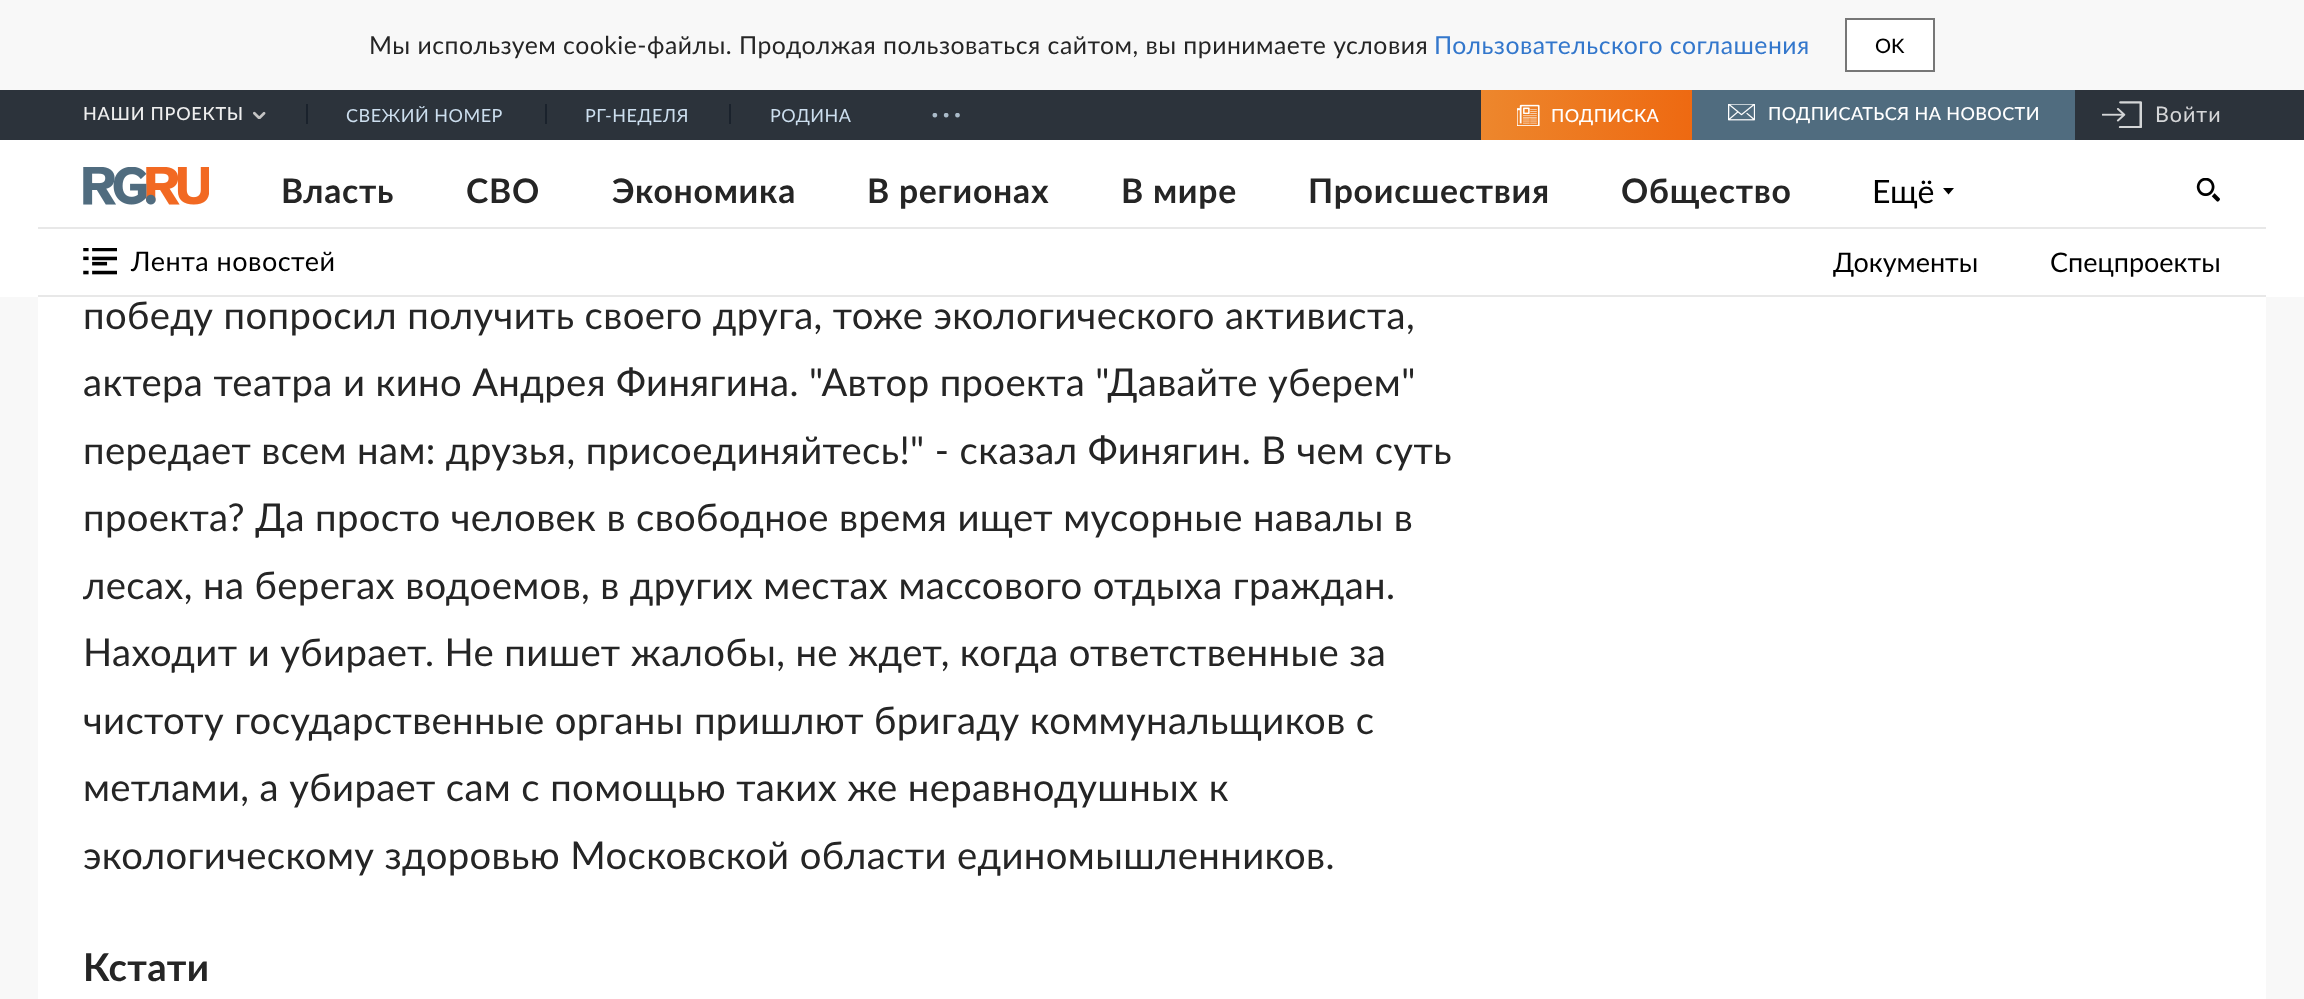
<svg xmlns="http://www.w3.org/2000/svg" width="2304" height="999">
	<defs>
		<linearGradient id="g1" gradientUnits="userSpaceOnUse" x1="1693" y1="120" x2="1480" y2="110"><stop offset="0" stop-color="#EE6911" /><stop offset="1" stop-color="#ED872D" /><stop offset="1" stop-color="#EE8830" /></linearGradient>
	</defs>
	<rect width="100%" height="100%" fill="#F8F8F8" />
	<text x="369" y="54" font-family="Lato" font-size="24.75" letter-spacing="0.5" fill="#252525">Мы используем cookie-файлы. Продолжая пользоваться сайтом, вы принимаете условия</text>
	<text x="1434" y="54" font-family="Lato" font-size="24.75" letter-spacing="0.5" fill="#3377CC">Пользовательского соглашения</text>
	<rect x="1846" y="19" width="88" height="52" fill="#FFFFFF" stroke="#777777" stroke-width="2" />
	<text x="1875" y="53" font-family="Lato" font-size="20" font-weight="500" fill="#000000">OK</text>
	<rect x="0" y="90" width="2304" height="50" fill="#2C333B" />
	<text x="83" y="120" font-family="Lato" font-size="18" font-weight="500" letter-spacing="0.75" fill="#EEEEEE">НАШИ ПРОЕКТЫ</text>
	<image x="253" y="111" width="13" height="8" href="assets/img1.png" />
	<rect x="306" y="104" width="2" height="20" fill="#1A222C" />
	<text x="346" y="122" font-family="Lato" font-size="18" letter-spacing="0.5" fill="#CCDEEE">СВЕЖИЙ НОМЕР</text>
	<rect x="545" y="104" width="2" height="20" fill="#1A222C" />
	<text x="585" y="122" font-family="Lato" font-size="18" letter-spacing="0.5" fill="#CCDEEE">РГ-НЕДЕЛЯ</text>
	<rect x="729" y="104" width="2" height="20" fill="#1A222C" />
	<text x="770" y="122" font-family="Lato" font-size="18" letter-spacing="0.5" fill="#CCDEEE">РОДИНА</text>
	<image x="932" y="113" width="28" height="5" href="assets/img2.png" />
	<rect x="1481" y="90" width="211" height="50" fill="url(#g1)" />
	<image x="1517" y="104" width="23" height="22" href="assets/img3.png" />
	<text x="1551" y="122" font-family="Lato" font-size="18" font-weight="500" letter-spacing="0.4" fill="#FFFFFF">ПОДПИСКА</text>
	<rect x="1692" y="90" width="383" height="50" fill="#506C7F" />
	<image x="1728" y="104" width="27" height="17" href="assets/img4.png" />
	<text x="1768" y="120" font-family="Lato" font-size="18" font-weight="500" letter-spacing="0.4" fill="#FFFFFF">ПОДПИСАТЬСЯ НА НОВОСТИ</text>
	<image x="2102" y="101" width="40" height="27" href="assets/img5.png" />
	<text x="2155" y="122" font-family="Lato" font-size="21.5" letter-spacing="1" fill="#D5D6D8">Войти</text>
	<rect x="0" y="140" width="2304" height="157" fill="#FFFFFF" />
	<rect x="38" y="227" width="2228" height="2" fill="#E8E8E8" />
	<image x="83" y="167" width="126" height="38" href="assets/img6.png" />
	<g font-family="Lato" font-size="33.75" font-weight="700" letter-spacing="0.75" fill="#252525">
		<text x="281" y="203">Власть</text>
		<text x="466" y="203">СВО</text>
		<text x="612" y="203">Экономика</text>
		<text x="867" y="203">В регионах</text>
		<text x="1121" y="203">В мире</text>
		<text x="1308" y="203">Происшествия</text>
		<text x="1621" y="203">Общество</text>
	</g>
	<text x="1872" y="203" font-family="Lato" font-size="32" fill="#000000">Ещё</text>
	<path d="M1948.5 194.5L1943 188H1954Z" fill="#000000" />
	<image x="2196" y="178" width="24" height="24" href="assets/img7.png" />
	<rect x="38" y="295" width="2228" height="2" fill="#E8E8E8" />
	<image x="83" y="248" width="34" height="27" href="assets/img8.png" />
	<text x="131" y="271" font-family="Lato" font-size="27" letter-spacing="0.5" fill="#000000">Лента новостей</text>
	<g font-family="Lato" font-size="27" fill="#000000">
		<text x="1833" y="272">Документы</text>
		<text x="2050" y="272">Спецпроекты</text>
	</g>
	<rect x="38" y="297" width="2228" height="702" fill="#FFFFFF" />
	<g font-family="Lato" font-size="38.25" letter-spacing="0.38" fill="#252525">
		<text x="83" y="329">победу попросил получить своего друга, тоже экологического активиста,</text>
		<text x="83" y="396">актера театра и кино Андрея Финягина. "Автор проекта "Давайте уберем"</text>
		<text x="83" y="464">передает всем нам: друзья, присоединяйтесь!" - сказал Финягин. В чем суть</text>
		<text x="83" y="531">проекта? Да просто человек в свободное время ищет мусорные навалы в</text>
		<text x="83" y="599">лесах, на берегах водоемов, в других местах массового отдыха граждан.</text>
		<text x="83" y="666">Находит и убирает. Не пишет жалобы, не ждет, когда ответственные за</text>
		<text x="83" y="734">чистоту государственные органы пришлют бригаду коммунальщиков с</text>
		<text x="83" y="801">метлами, а убирает сам с помощью таких же неравнодушных к</text>
		<text x="83" y="869">экологическому здоровью Московской области единомышленников.</text>
	</g>
	<text x="83" y="981" font-family="Lato" font-size="38.25" font-weight="700" letter-spacing="0.38" fill="#252525">Кстати</text>
</svg>
